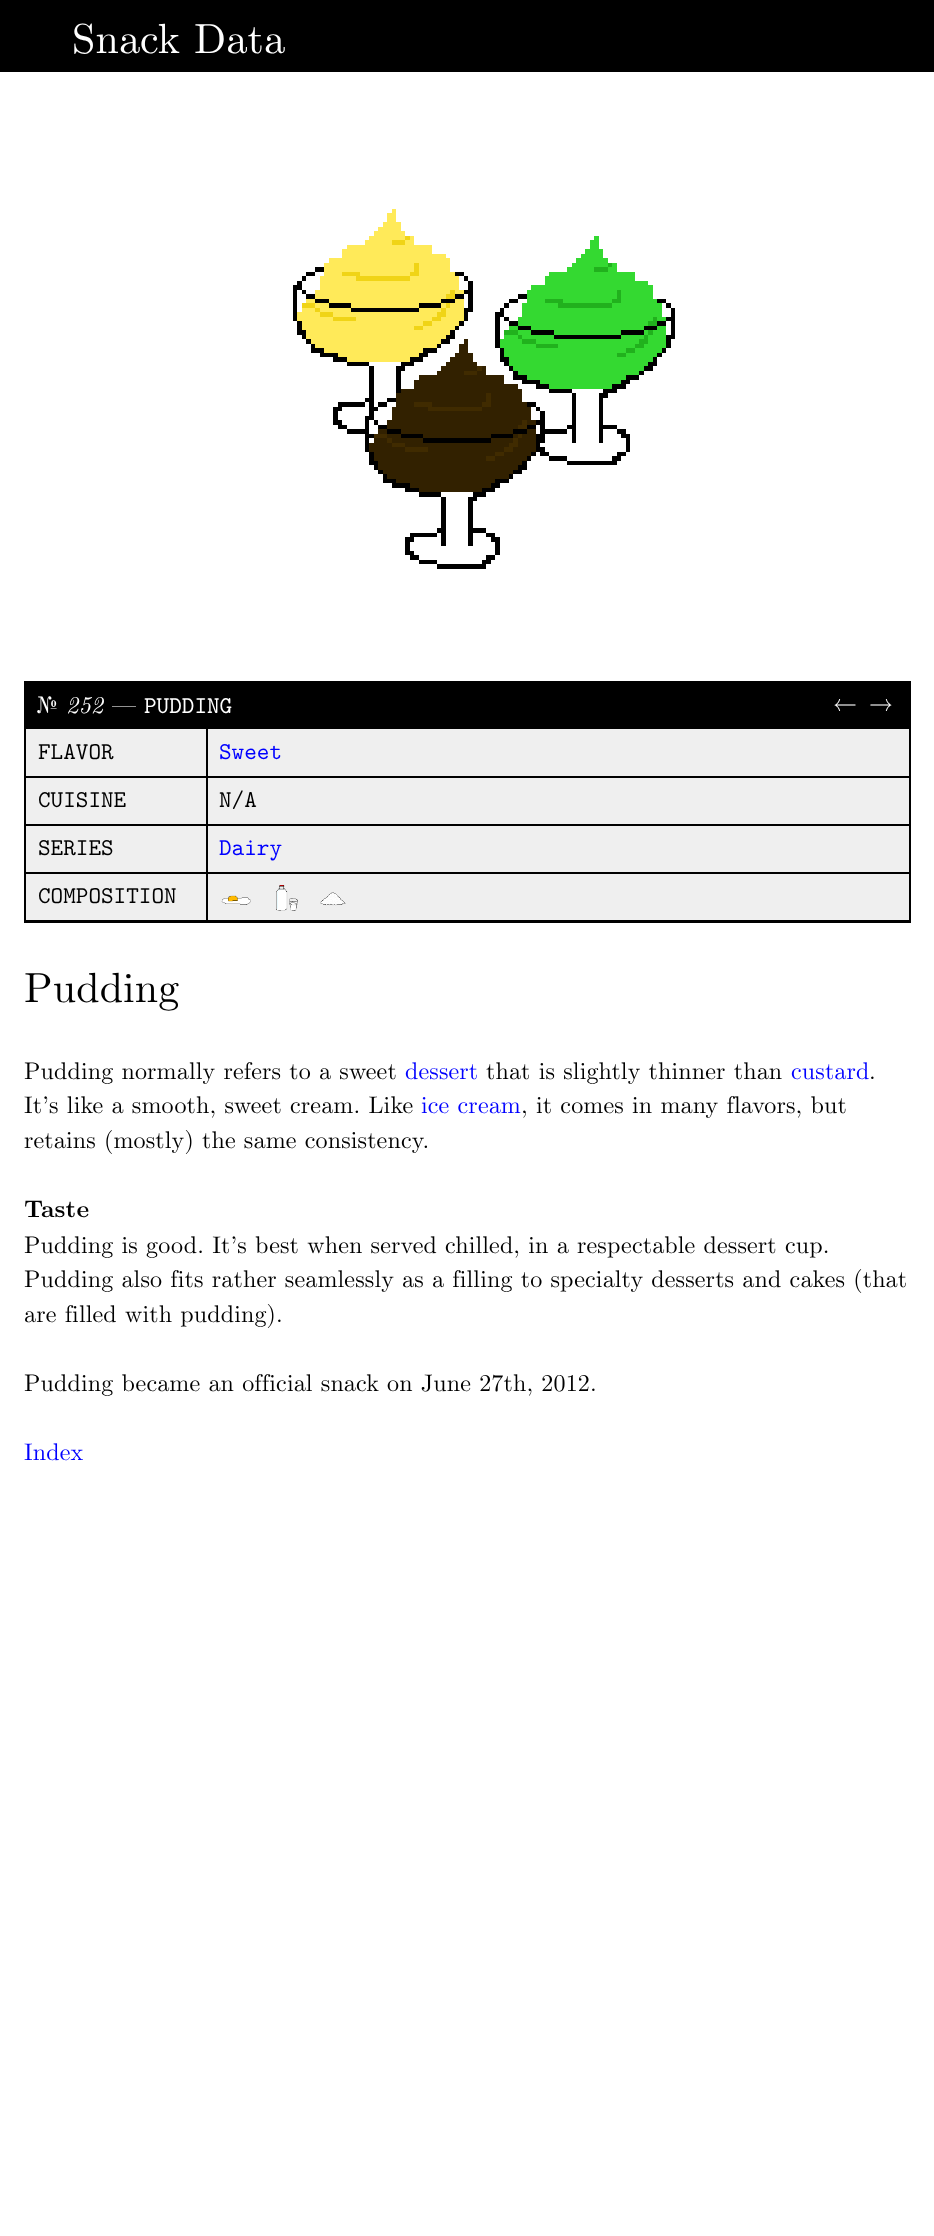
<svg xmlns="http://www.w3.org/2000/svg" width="934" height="2236">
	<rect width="100%" height="100%" fill="#FFFFFF" />
	<rect x="0" y="0" width="934" height="72" fill="#000000" />
	<text x="72" y="53" font-family="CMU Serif" font-size="42" letter-spacing="0.15" fill="#FFFFFF">Snack Data</text>
	<image x="293" y="209" width="382" height="360" href="assets/img1.png" />
	<rect x="24" y="681" width="887" height="48" fill="#000000" />
	<text x="36" y="713" font-family="CMU Serif" font-size="24" letter-spacing="0.15" fill="#FFFFFF">№</text>
	<text x="66" y="713" font-family="CMU Serif" font-size="24" font-weight="500" font-style="italic" letter-spacing="0.15" fill="#FFFFFF">252</text>
	<text x="112" y="713" font-family="CMU Serif" font-size="24" letter-spacing="0.15" fill="#FFFFFF">—</text>
	<text x="144" y="713" font-family="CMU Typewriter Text" font-size="24" fill="#FFFFFF">PUDDING</text>
	<g font-family="CMU Serif" font-size="24" letter-spacing="0.15" fill="#FFFFFF">
		<text x="833" y="711">←</text>
		<text x="869" y="711">→</text>
	</g>
	<rect x="26" y="729" width="883" height="191" fill="#EFEFEF" />
	<rect x="909" y="729" width="2" height="194" fill="#000000" />
	<rect x="24" y="921" width="887" height="2" fill="#000000" />
	<rect x="24" y="729" width="2" height="194" fill="#000000" />
	<rect x="26" y="776" width="883" height="2" fill="#000000" />
	<text x="38" y="759" font-family="CMU Typewriter Text" font-size="24" fill="#000000">FLAVOR</text>
	<rect x="206" y="729" width="2" height="48" fill="#000000" />
	<text x="219" y="759" font-family="CMU Typewriter Text" font-size="24" fill="#0000FF">Sweet</text>
	<rect x="26" y="824" width="883" height="2" fill="#000000" />
	<text x="38" y="807" font-family="CMU Typewriter Text" font-size="24" fill="#000000">CUISINE</text>
	<rect x="206" y="777" width="2" height="48" fill="#000000" />
	<text x="219" y="807" font-family="CMU Typewriter Text" font-size="24" fill="#000000">N/A</text>
	<rect x="26" y="872" width="883" height="2" fill="#000000" />
	<text x="38" y="855" font-family="CMU Typewriter Text" font-size="24" fill="#000000">SERIES</text>
	<rect x="206" y="825" width="2" height="48" fill="#000000" />
	<text x="219" y="855" font-family="CMU Typewriter Text" font-size="24" fill="#0000FF">Dairy</text>
	<rect x="26" y="920" width="883" height="1" fill="#000000" />
	<text x="38" y="903" font-family="CMU Typewriter Text" font-size="24" fill="#000000">COMPOSITION</text>
	<rect x="206" y="873" width="2" height="48" fill="#000000" />
	<image x="221" y="895" width="30" height="10" href="assets/img2.png" />
	<image x="276" y="885" width="22" height="26" href="assets/img3.png" />
	<image x="320" y="892" width="26" height="14" href="assets/img4.png" />
	<text x="24" y="1002" font-family="CMU Serif" font-size="42" letter-spacing="0.15" fill="#000000">Pudding</text>
	<text x="24" y="1079" font-family="CMU Serif" font-size="24" letter-spacing="0.15" fill="#000000">Pudding normally refers to a sweet</text>
	<text x="405" y="1079" font-family="CMU Serif" font-size="24" letter-spacing="0.15" fill="#0000FF">dessert</text>
	<text x="486" y="1079" font-family="CMU Serif" font-size="24" letter-spacing="0.15" fill="#000000">that is slightly thinner than</text>
	<text x="791" y="1079" font-family="CMU Serif" font-size="24" letter-spacing="0.15" fill="#0000FF">custard</text>
	<g font-family="CMU Serif" font-size="24" letter-spacing="0.15" fill="#000000">
		<text x="869" y="1079">.</text>
		<text x="24" y="1113">It’s like a smooth, sweet cream. Like</text>
	</g>
	<text x="421" y="1113" font-family="CMU Serif" font-size="24" letter-spacing="0.15" fill="#0000FF">ice cream</text>
	<g font-family="CMU Serif" font-size="24" letter-spacing="0.15" fill="#000000">
		<text x="521" y="1113">, it comes in many flavors, but</text>
		<text x="24" y="1148">retains (mostly) the same consistency.</text>
	</g>
	<text x="24" y="1217" font-family="CMU Serif" font-size="24" font-weight="700" letter-spacing="0.15" fill="#000000">Taste</text>
	<g font-family="CMU Serif" font-size="24" letter-spacing="0.15" fill="#000000">
		<text x="24" y="1253">Pudding is good. It’s best when served chilled, in a respectable dessert cup.</text>
		<text x="24" y="1287">Pudding also fits rather seamlessly as a filling to specialty desserts and cakes (that</text>
		<text x="24" y="1322">are filled with pudding).</text>
		<text x="24" y="1391">Pudding became an official snack on June 27th, 2012.</text>
	</g>
	<text x="24" y="1460" font-family="CMU Serif" font-size="24" letter-spacing="0.15" fill="#0000FF">Index</text>
</svg>
